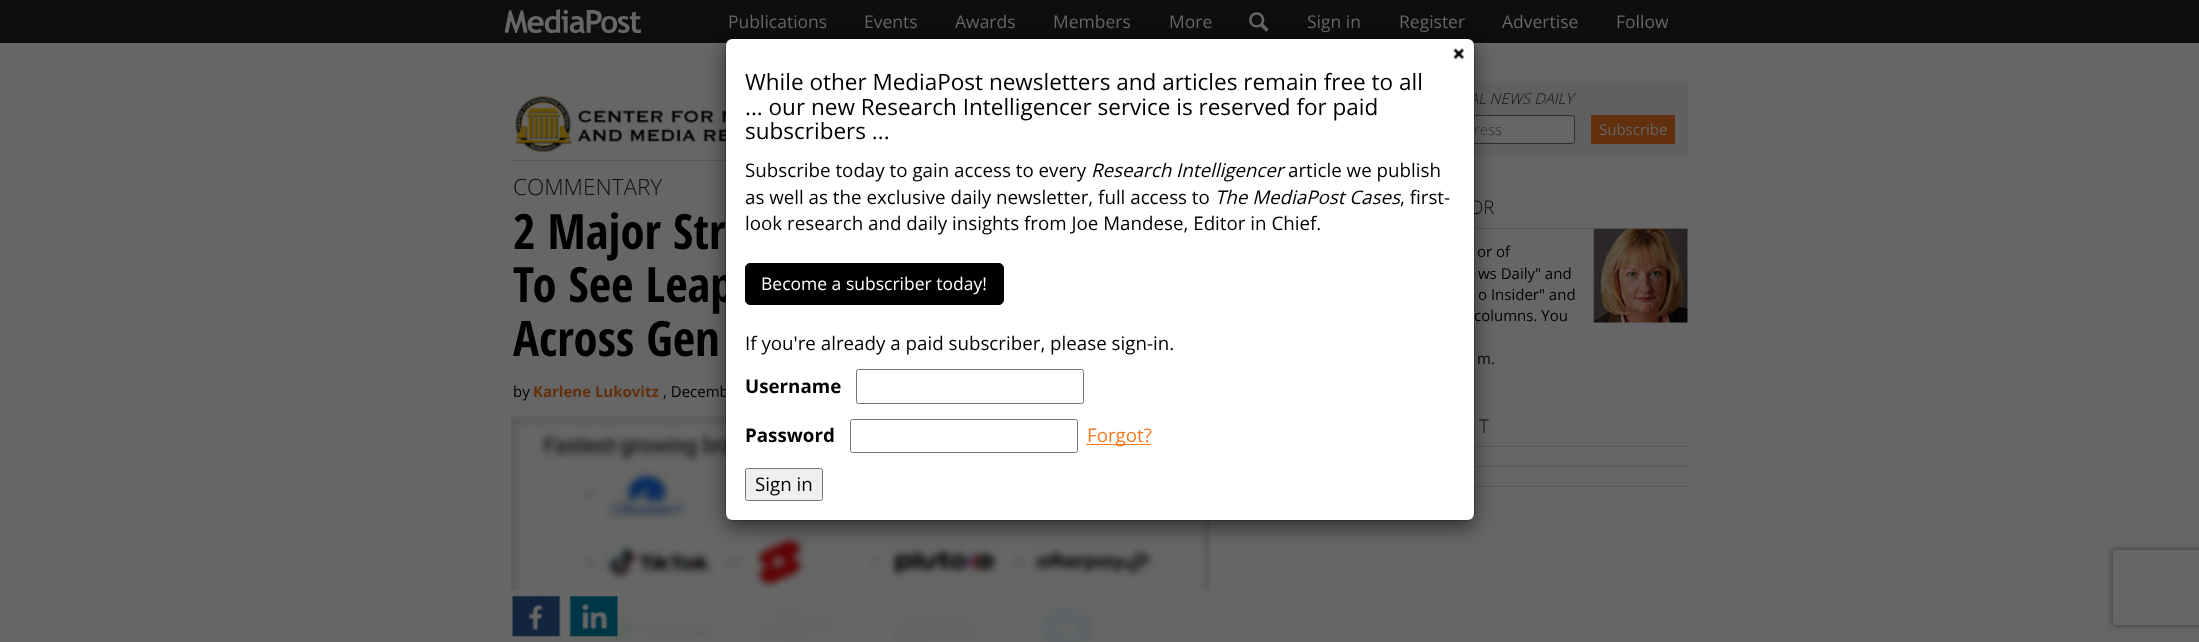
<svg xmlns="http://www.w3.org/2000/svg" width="2199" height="642">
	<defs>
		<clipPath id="clip1"><path d="M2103 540H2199V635H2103ZM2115.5 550H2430.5C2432 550 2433 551 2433 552.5V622.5C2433 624 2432 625 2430.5 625H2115.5C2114 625 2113 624 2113 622.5V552.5C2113 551 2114 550 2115.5 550Z" clip-rule="evenodd" /></clipPath>
	</defs>
	<rect width="100%" height="100%" fill="#666666" />
	<rect x="0" y="0" width="2199" height="43" fill="#0E0E0E" />
	<image x="505" y="9" width="136" height="24" href="assets/img1.png" />
	<g font-family="Open Sans" font-size="17.5" fill="#666666">
		<text x="728" y="28">Publications</text>
		<text x="864" y="28">Events</text>
		<text x="955" y="28">Awards</text>
		<text x="1053" y="28">Members</text>
		<text x="1169" y="28">More</text>
	</g>
	<image x="1249" y="12" width="20" height="20" href="assets/img2.png" />
	<g font-family="Open Sans" font-size="17.5" fill="#666666">
		<text x="1307" y="28">Sign in</text>
		<text x="1399" y="28">Register</text>
		<text x="1502" y="28">Advertise</text>
		<text x="1616" y="28">Follow</text>
	</g>
	<rect x="513" y="160" width="213" height="1" fill="#585858" />
	<image x="514" y="96" width="212" height="57" href="assets/img4.png" />
	<rect x="1474" y="81" width="214" height="75" fill="#606060" />
	<rect x="1329.5" y="115.5" width="245" height="28" rx="2" fill="#666666" stroke="#2F2F2F" />
	<image x="511" y="416" width="699" height="226" href="assets/img5.png" />
	<rect x="1474" y="228" width="214" height="1" fill="#585858" />
	<rect x="1474" y="446" width="214" height="1" fill="#585858" />
	<rect x="1474" y="466" width="214" height="1" fill="#585858" />
	<rect x="1474" y="486" width="214" height="1" fill="#585858" />
	<rect x="725" y="44" width="750" height="484" rx="8" fill="#000000" fill-opacity="0.5" filter="blur(9.5px)" />
	<text x="1469" y="104" font-family="Open Sans" font-size="15" font-weight="300" font-style="italic" fill="#141414">AL NEWS DAILY</text>
	<text x="513" y="302" font-family="Open Sans Condensed" font-size="48.75" font-weight="700" fill="#000000">To See Leap</text>
	<text x="663" y="397" font-family="Open Sans" font-size="15" fill="#000000">, Decemb</text>
	<text x="1469" y="214" font-family="Open Sans" font-size="18.75" font-weight="300" fill="#0E0E0E">OR</text>
	<rect x="726" y="39" width="748" height="481" rx="6" fill="#FFFFFF" />
	<text x="1474" y="321" font-family="Open Sans" font-size="15" fill="#000000">columns. You</text>
	<rect x="725.5" y="38.5" width="749" height="482" rx="7.5" fill="none" stroke="#000000" stroke-opacity="0.2" />
	<image x="1453" y="48" width="12" height="12" href="assets/img3.png" />
	<g font-family="Open Sans" font-size="22.5" fill="#000000">
		<text x="745" y="90">While other MediaPost newsletters and articles remain free to all</text>
		<text x="745" y="115">... our new Research Intelligencer service is reserved for paid</text>
		<text x="745" y="139">subscribers ...</text>
	</g>
	<text x="745" y="177" font-family="Open Sans" font-size="18.75" fill="#000000">Subscribe today to gain access to every</text>
	<text x="1091" y="177" font-family="Open Sans" font-size="18.75" font-style="italic" fill="#000000">Research Intelligencer</text>
	<g font-family="Open Sans" font-size="18.75" fill="#000000">
		<text x="1288" y="177">article we publish</text>
		<text x="745" y="204">as well as the exclusive daily newsletter, full access to</text>
	</g>
	<text x="1215" y="204" font-family="Open Sans" font-size="18.75" font-style="italic" fill="#000000">The MediaPost Cases</text>
	<g font-family="Open Sans" font-size="18.75" fill="#000000">
		<text x="1400" y="204">, first-</text>
		<text x="745" y="230">look research and daily insights from Joe Mandese, Editor in Chief.</text>
	</g>
	<rect x="745.5" y="263.5" width="258" height="41" rx="4.5" fill="#000000" stroke="#000000" />
	<text x="761" y="290" font-family="Open Sans" font-size="17.5" fill="#FFFFFF">Become a subscriber today!</text>
	<text x="745" y="350" font-family="Open Sans" font-size="18.75" fill="#000000">If you're already a paid subscriber, please sign-in.</text>
	<text x="745" y="393" font-family="Open Sans" font-size="18.75" font-weight="700" fill="#000000">Username</text>
	<rect x="856.5" y="369.5" width="227" height="34" rx="2" fill="none" stroke="#767676" />
	<text x="745" y="442" font-family="Open Sans" font-size="18.75" font-weight="700" fill="#000000">Password</text>
	<rect x="850.5" y="419.5" width="227" height="33" rx="2" fill="none" stroke="#767676" />
	<rect x="1086" y="444" width="65" height="1" fill="#F47920" />
	<text x="1087" y="442" font-family="Open Sans" font-size="18.75" fill="#F47920">Forgot?</text>
	<rect x="745.5" y="468.5" width="77" height="32" rx="2" fill="#EFEFEF" stroke="#767676" />
	<text x="755" y="491" font-family="Open Sans" font-size="18.75" fill="#000000">Sign in</text>
	<text x="1474" y="135" font-family="Open Sans" font-size="15" font-weight="300" fill="#2F2F2F">ress</text>
	<rect x="1591" y="115" width="84" height="29" fill="#62300D" />
	<text x="1599" y="135" font-family="Open Sans" font-size="15" fill="#666666">Subscribe</text>
	<g clip-path="url(#clip1)">
		<rect x="2113" y="550" width="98" height="75" rx="2.5" fill="#333333" filter="blur(3px)" />
	</g>
	<text x="513" y="195" font-family="Open Sans" font-size="22.5" font-weight="300" fill="#0E0E0E">COMMENTARY</text>
	<g font-family="Open Sans Condensed" font-size="48.75" font-weight="700" fill="#000000">
		<text x="513" y="249">2 Major Str</text>
		<text x="513" y="356">Across Gen</text>
	</g>
	<text x="513" y="397" font-family="Open Sans" font-size="15" fill="#000000">by</text>
	<text x="533" y="397" font-family="Open Sans" font-size="15" font-weight="700" fill="#62300D">Karlene Lukovitz</text>
	<rect x="511" y="590" width="699" height="52" fill="#666666" fill-opacity="0.9" />
	<image x="512" y="596" width="49" height="41" href="assets/img6.png" />
	<image x="569" y="596" width="49" height="41" href="assets/img7.png" />
	<g font-family="Open Sans" font-size="15" fill="#000000">
		<text x="1477" y="257">or of</text>
		<text x="1478" y="279">ws Daily" and</text>
		<text x="1478" y="300">o Insider" and</text>
		<text x="1477" y="364">m.</text>
	</g>
	<image x="1593" y="228" width="95" height="95" href="assets/img8.png" />
	<text x="1479" y="433" font-family="Open Sans" font-size="18.75" font-weight="300" fill="#0E0E0E">T</text>
</svg>
